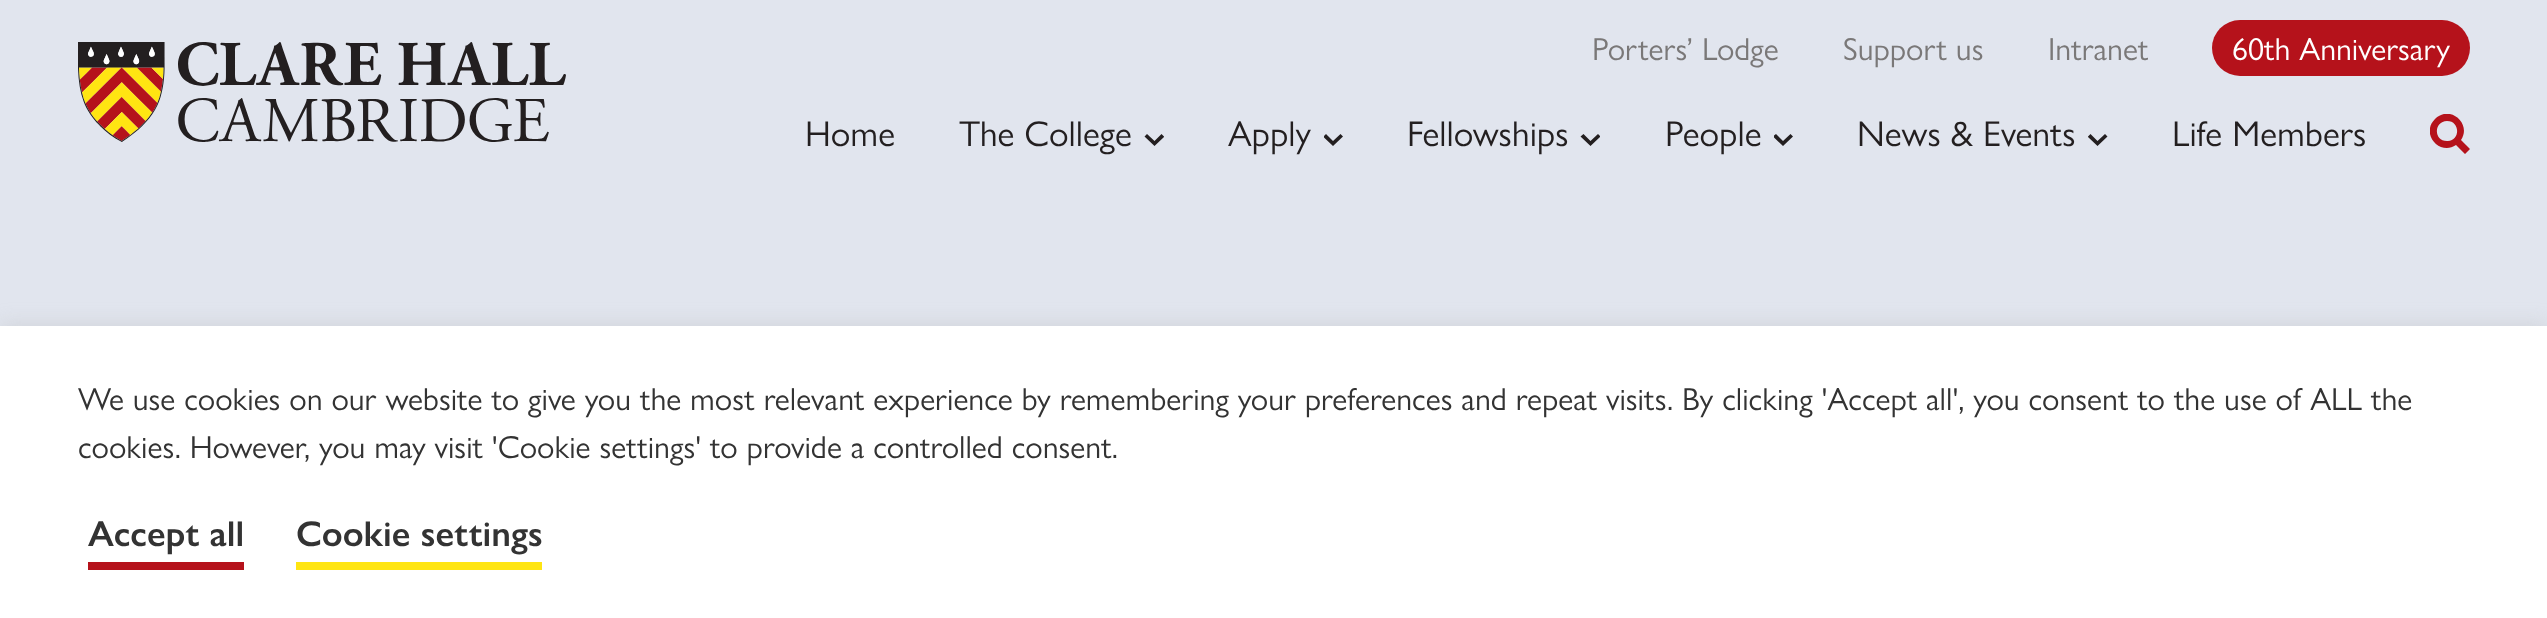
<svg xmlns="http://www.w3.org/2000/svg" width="2547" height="618">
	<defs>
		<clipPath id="clip1"><rect x="2430" y="114" width="40" height="40" /></clipPath>
	</defs>
	<rect width="100%" height="100%" fill="#E1E5EE" />
	<image x="78" y="42" width="488" height="100" href="assets/img1.png" />
	<g font-family="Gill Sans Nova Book" font-size="32" fill="#7A7878">
		<text x="1592" y="60">Porters’ Lodge</text>
		<text x="1843" y="60">Support us</text>
		<text x="2048" y="60">Intranet</text>
	</g>
	<rect x="2212" y="20" width="258" height="56" rx="28" fill="#B5121B" />
	<text x="2232" y="60" font-family="Gill Sans Nova Book" font-size="32" fill="#FFFFFF">60th Anniversary</text>
	<g font-family="Gill Sans Nova Book" font-size="36" fill="#231F20">
		<text x="805" y="146">Home</text>
		<text x="959" y="146">The College</text>
	</g>
	<path d="M1164 137L1154.5 146L1144.5 136.5L1147 134L1154.5 141L1161.5 134L1164 136.5Z" fill="#231F20" />
	<text x="1228" y="146" font-family="Gill Sans Nova Book" font-size="36" fill="#231F20">Apply</text>
	<path d="M1343 136.5L1333 146L1324 137.5V136L1326 134L1333 141L1340.5 134Z" fill="#231F20" />
	<text x="1407" y="146" font-family="Gill Sans Nova Book" font-size="36" fill="#231F20">Fellowships</text>
	<path d="M1600 137L1590.5 146L1580.5 136.5L1583.5 134L1590.5 141L1598 134L1600 136Z" fill="#231F20" />
	<text x="1665" y="146" font-family="Gill Sans Nova Book" font-size="36" fill="#231F20">People</text>
	<path d="M1793 136.5L1783 146L1774 137.5V135.5L1776 134L1783 141L1790.5 134Z" fill="#231F20" />
	<text x="1857" y="146" font-family="Gill Sans Nova Book" font-size="36" fill="#231F20">News &amp; Events</text>
	<path d="M2107.5 136.5L2097.5 146L2088 137V136.5L2090.5 134L2097.5 141L2105 134Z" fill="#231F20" />
	<text x="2172" y="146" font-family="Gill Sans Nova Book" font-size="36" fill="#231F20">Life Members</text>
	<g clip-path="url(#clip1)">
		<path d="M2461 140C2472 124 2450 104 2435 119C2420 134 2440 156 2456 145L2465 154L2470 149ZM2447 121C2461 121 2460 142 2447 141C2433 141 2434 121 2447 121Z" fill="#B5121B" />
	</g>
	<rect x="0" y="324" width="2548" height="292" fill="#ACABAB" fill-opacity="0.3" filter="blur(10px)" />
	<rect x="0" y="326" width="2547" height="292" fill="#FFFFFF" />
	<g font-family="Gill Sans Nova Book" font-size="32" fill="#333333">
		<text x="78" y="410">We use cookies on our website to give you the most relevant experience by remembering your preferences and repeat visits. By clicking 'Accept all', you consent to the use of ALL the</text>
		<text x="78" y="458">cookies. However, you may visit 'Cookie settings' to provide a controlled consent.</text>
	</g>
	<rect x="88" y="562" width="156" height="8" fill="#B5121B" />
	<text x="88" y="546" font-family="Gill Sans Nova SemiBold" font-size="36" font-weight="600" fill="#333333">Accept all</text>
	<rect x="296" y="562" width="246" height="8" fill="#FFE512" />
	<text x="296" y="546" font-family="Gill Sans Nova SemiBold" font-size="36" font-weight="600" fill="#333333">Cookie settings</text>
</svg>
